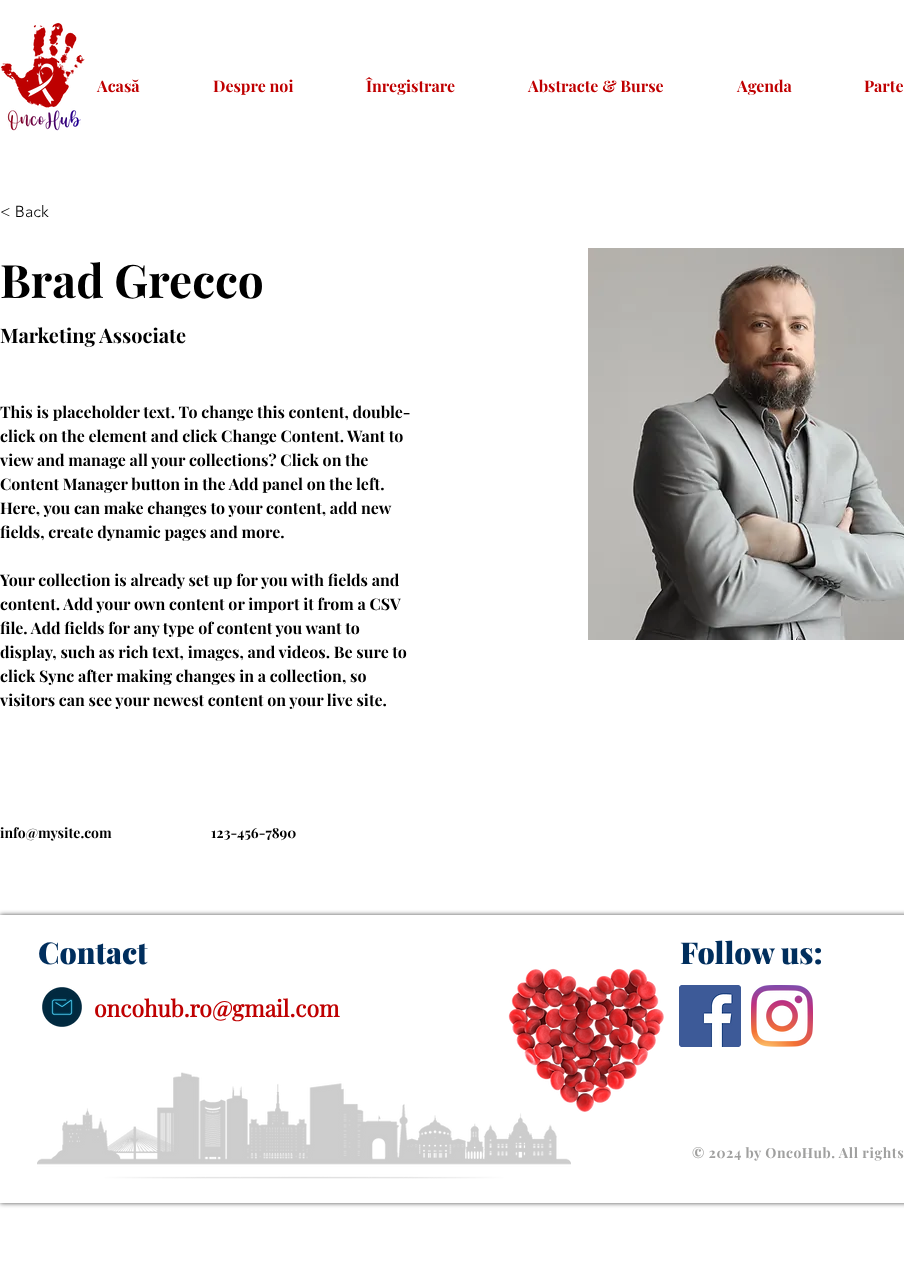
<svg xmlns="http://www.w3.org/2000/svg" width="904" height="1270">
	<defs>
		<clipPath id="clip1"><path d="M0 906H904V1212H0ZM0 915H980V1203H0Z" clip-rule="evenodd" /></clipPath>
	</defs>
	<rect width="100%" height="100%" fill="#FFFFFF" />
	<image x="1" y="22" width="84" height="109" href="assets/img1.png" />
	<g font-family="Playfair Display" font-size="16" font-weight="700" fill="#BF0001">
		<text x="97" y="92">Acasă</text>
		<text x="213" y="92">Despre noi</text>
		<text x="366" y="92">Înregistrare</text>
		<text x="528" y="92">Abstracte &amp; Burse</text>
		<text x="737" y="92">Agenda</text>
		<text x="864" y="92">Parte</text>
	</g>
	<text x="0" y="217" font-family="'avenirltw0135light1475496'" font-size="16" font-weight="300" fill="#000000">&lt; Back</text>
	<text x="0" y="298" font-family="Playfair Display" font-size="46" font-weight="700" fill="#000000">Brad Grecco</text>
	<text x="0" y="343" font-family="Playfair Display" font-size="20" font-weight="700" fill="#000000">Marketing Associate</text>
	<g font-family="Playfair Display" font-size="16" font-weight="700" fill="#000000">
		<text x="0" y="418">This is placeholder text. To change this content, double-</text>
		<text x="0" y="442">click on the element and click Change Content. Want to</text>
		<text x="0" y="466">view and manage all your collections? Click on the</text>
		<text x="0" y="490">Content Manager button in the Add panel on the left.</text>
		<text x="0" y="514">Here, you can make changes to your content, add new</text>
		<text x="0" y="538">fields, create dynamic pages and more.</text>
		<text x="0" y="586">Your collection is already set up for you with fields and</text>
		<text x="0" y="610">content. Add your own content or import it from a CSV</text>
		<text x="0" y="634">file. Add fields for any type of content you want to</text>
		<text x="0" y="658">display, such as rich text, images, and videos. Be sure to</text>
		<text x="0" y="682">click Sync after making changes in a collection, so</text>
		<text x="0" y="706">visitors can see your newest content on your live site.</text>
	</g>
	<g font-family="Playfair Display" font-size="14" font-weight="700" fill="#000000">
		<text x="0" y="838">info@mysite.com</text>
		<text x="211" y="838">123-456-7890</text>
	</g>
	<image x="588" y="248" width="316" height="392" href="assets/img2.png" />
	<g clip-path="url(#clip1)">
		<rect x="0" y="915" width="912" height="288" fill="#000000" fill-opacity="0.7" filter="blur(2.5px)" />
	</g>
	<g font-family="Playfair Display" font-size="30" font-weight="900" fill="#002E5D">
		<text x="38" y="964">Contact</text>
		<text x="680" y="964">Follow us:</text>
	</g>
	<image x="42" y="987" width="40" height="40" href="assets/img3.png" />
	<text x="94" y="1017" font-family="'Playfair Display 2'" font-size="23" font-weight="700" fill="#BF0001">oncohub.ro@gmail.com</text>
	<image x="508" y="968" width="156" height="144" href="assets/img4.png" />
	<image x="679" y="985" width="62" height="62" href="assets/img5.png" />
	<image x="751" y="985" width="62" height="62" href="assets/img6.png" />
	<image x="37" y="1072" width="534" height="107" href="assets/img7.png" />
	<text x="692" y="1158" font-family="Playfair Display" font-size="14" font-weight="700" letter-spacing="0.55" fill="#A0A09F">© 2024 by OncoHub. All rights</text>
</svg>
